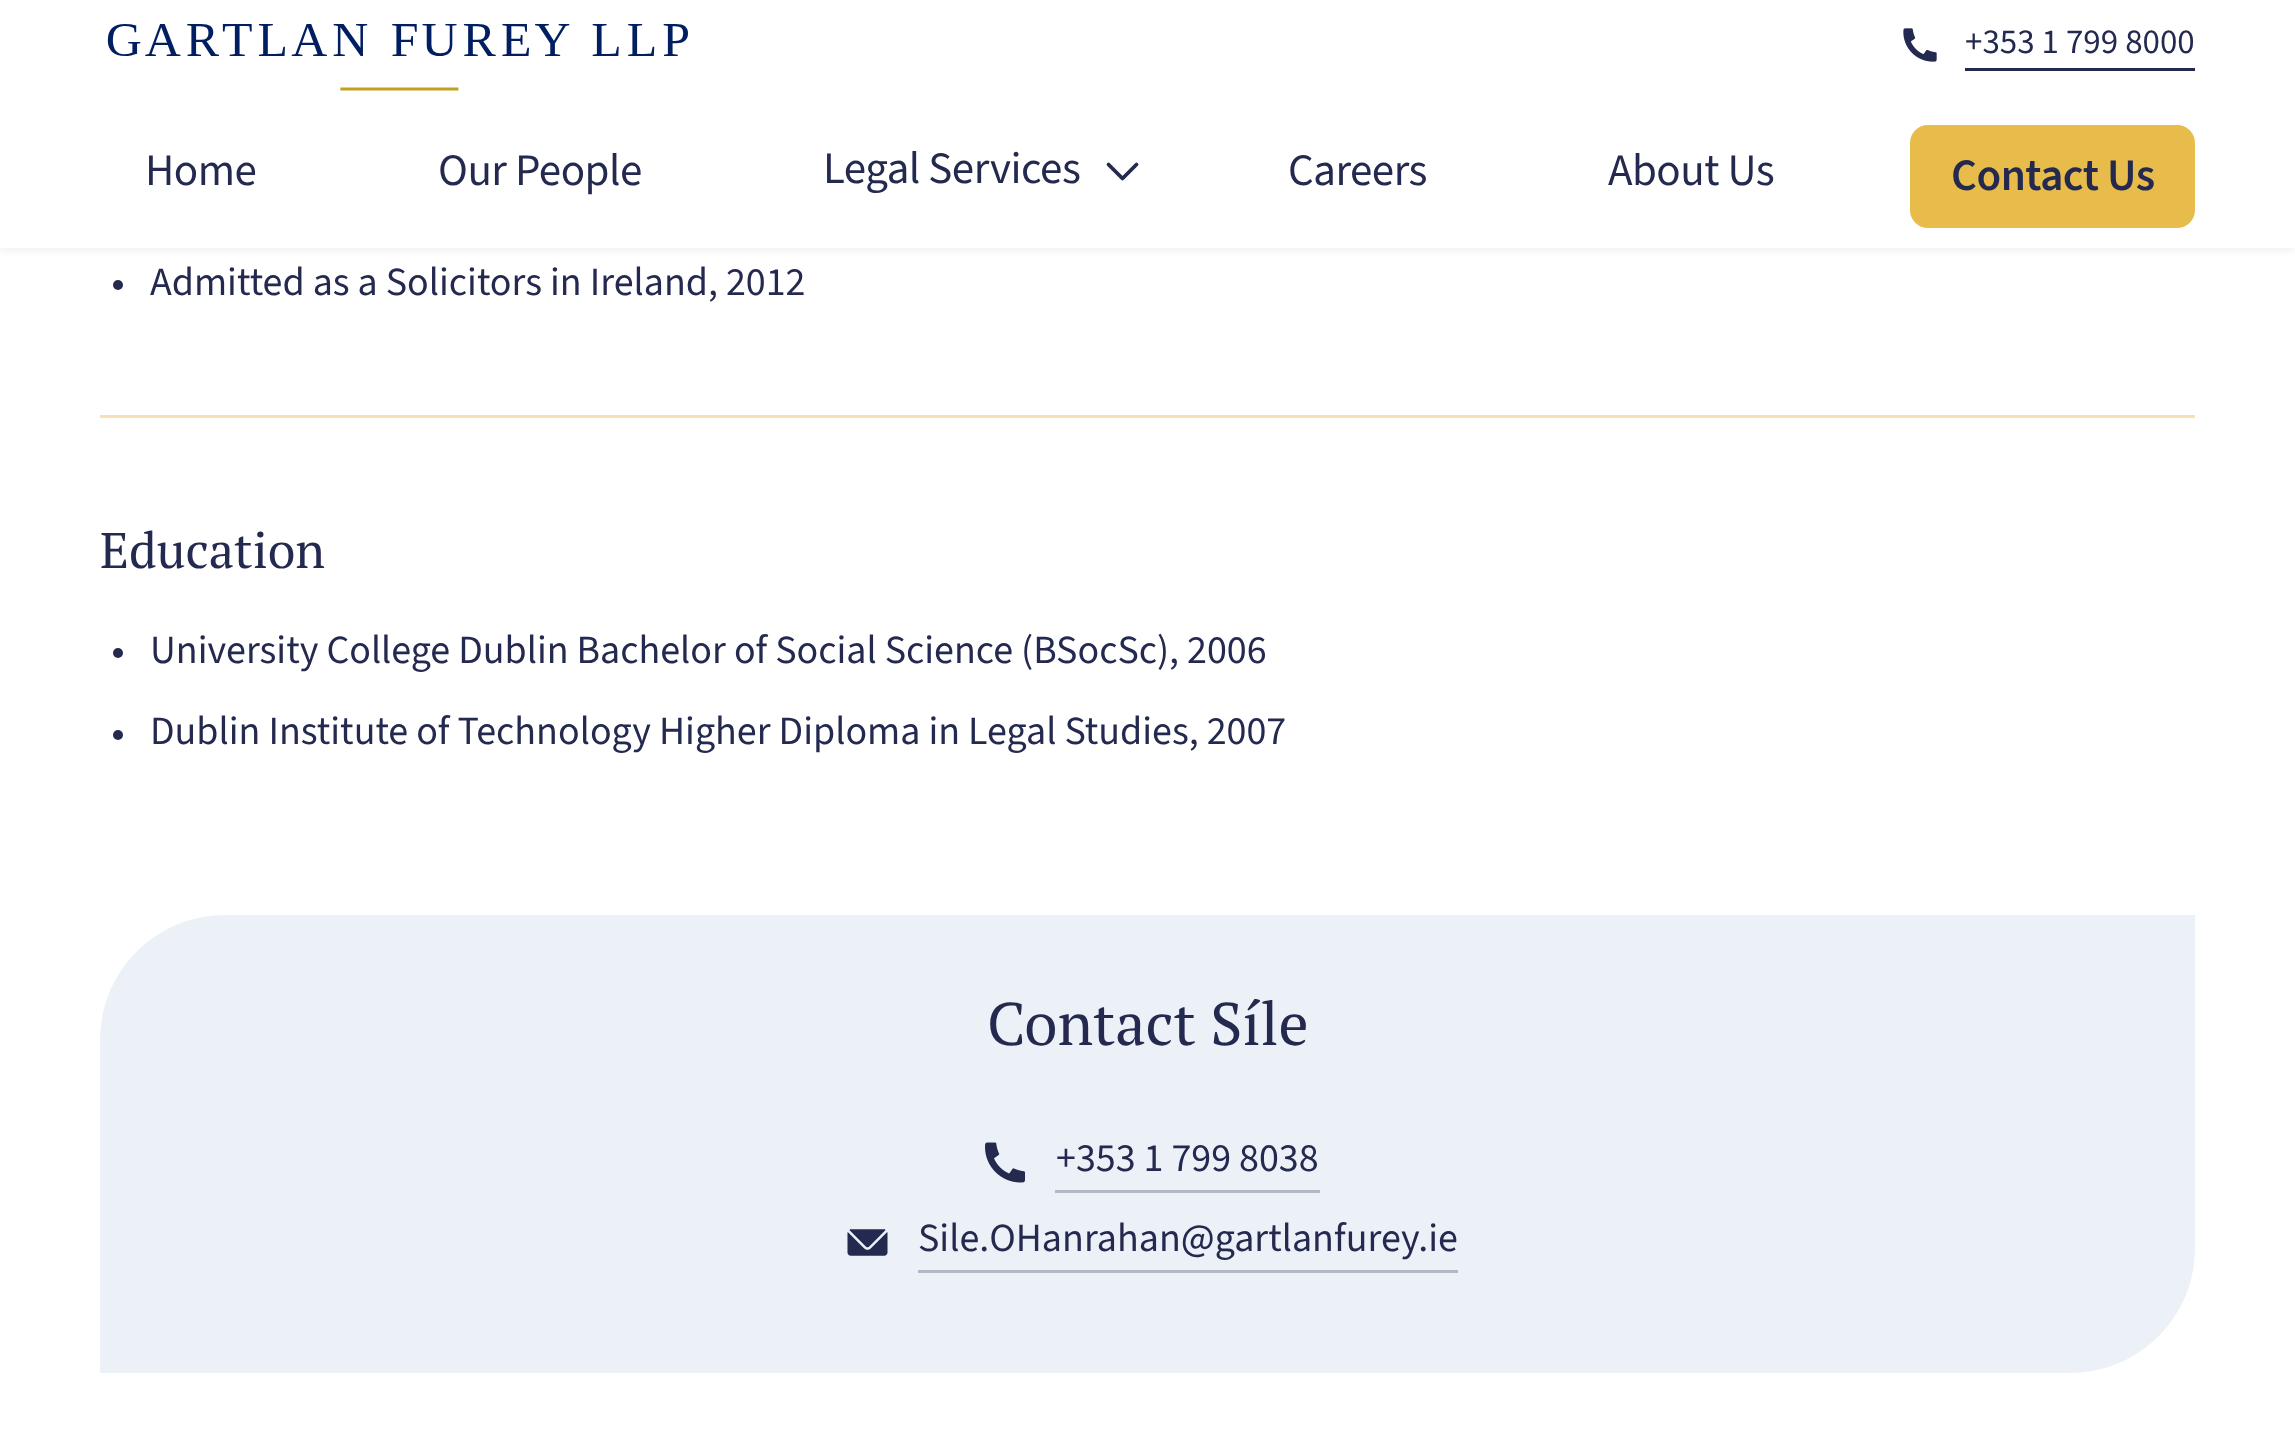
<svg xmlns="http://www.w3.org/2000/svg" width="2295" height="1445">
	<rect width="100%" height="100%" fill="#FFFFFF" />
	<rect x="0" y="3" width="2295" height="247" fill="#1C2040" fill-opacity="0.08" filter="blur(4px)" />
	<rect x="0" y="0" width="2295" height="248" fill="#FFFFFF" />
	<image x="107" y="24" width="581" height="67" href="assets/img1.png" />
	<image x="1903" y="28" width="34" height="34" href="assets/img2.png" />
	<text x="1965" y="53" font-family="'Source Sans 3'" font-size="35" fill="#24294F">+353 1 799 8000</text>
	<rect x="1965" y="68" width="230" height="3" fill="#24294F" />
	<g font-family="'Source Sans 3'" font-size="45" letter-spacing="-0.5" fill="#24294F">
		<text x="145" y="185">Home</text>
		<text x="438" y="185">Our People</text>
		<text x="823" y="183">Legal Services</text>
	</g>
	<path d="M1136.5 164.5L1122.5 178.5L1108.5 164.5" fill="none" stroke="#24294F" stroke-width="3.8" stroke-linecap="round" stroke-linejoin="round" />
	<g font-family="'Source Sans 3'" font-size="45" letter-spacing="-0.5" fill="#24294F">
		<text x="1288" y="185">Careers</text>
		<text x="1608" y="185">About Us</text>
	</g>
	<rect x="1910" y="125" width="285" height="103" rx="18" fill="#E8BC4A" />
	<text x="1951" y="190" font-family="'Source Sans 3'" font-size="45" font-weight="600" letter-spacing="-0.5" fill="#24294F">Contact Us</text>
	<circle cx="118" cy="285" r="5" fill="#24294F" />
	<text x="150" y="295" font-family="'Source Sans 3'" font-size="40" fill="#24294F">Admitted as a Solicitors in Ireland, 2012</text>
	<rect x="100" y="415" width="2095" height="3" fill="#F5E2B0" />
	<text x="100" y="568" font-family="PT Serif" font-size="50" fill="#24294F">Education</text>
	<circle cx="118" cy="653" r="5" fill="#24294F" />
	<text x="150" y="663" font-family="'Source Sans 3'" font-size="40" fill="#24294F">University College Dublin Bachelor of Social Science (BSocSc), 2006</text>
	<circle cx="118" cy="735" r="5" fill="#24294F" />
	<text x="150" y="744" font-family="'Source Sans 3'" font-size="40" fill="#24294F">Dublin Institute of Technology Higher Diploma in Legal Studies, 2007</text>
	<path d="M225 915H2195V1248C2195 1317 2139 1373 2070 1373H100V1040C100 971 156 915 225 915Z" fill="#ECF1F7" />
	<text x="987" y="1045" font-family="PT Serif" font-size="60" fill="#24294F">Contact Síle</text>
	<image x="985" y="1142" width="40" height="41" href="assets/img3.png" />
	<text x="1056" y="1171" font-family="'Source Sans 3'" font-size="40" fill="#24294F">+353 1 799 8038</text>
	<rect x="1055" y="1190" width="265" height="3" fill="#B1B8C6" />
	<image x="847" y="1229" width="41" height="27" href="assets/img4.png" />
	<text x="918" y="1251" font-family="'Source Sans 3'" font-size="40" fill="#24294F">Sile.OHanrahan@gartlanfurey.ie</text>
	<rect x="918" y="1270" width="540" height="3" fill="#B1B8C6" />
</svg>
